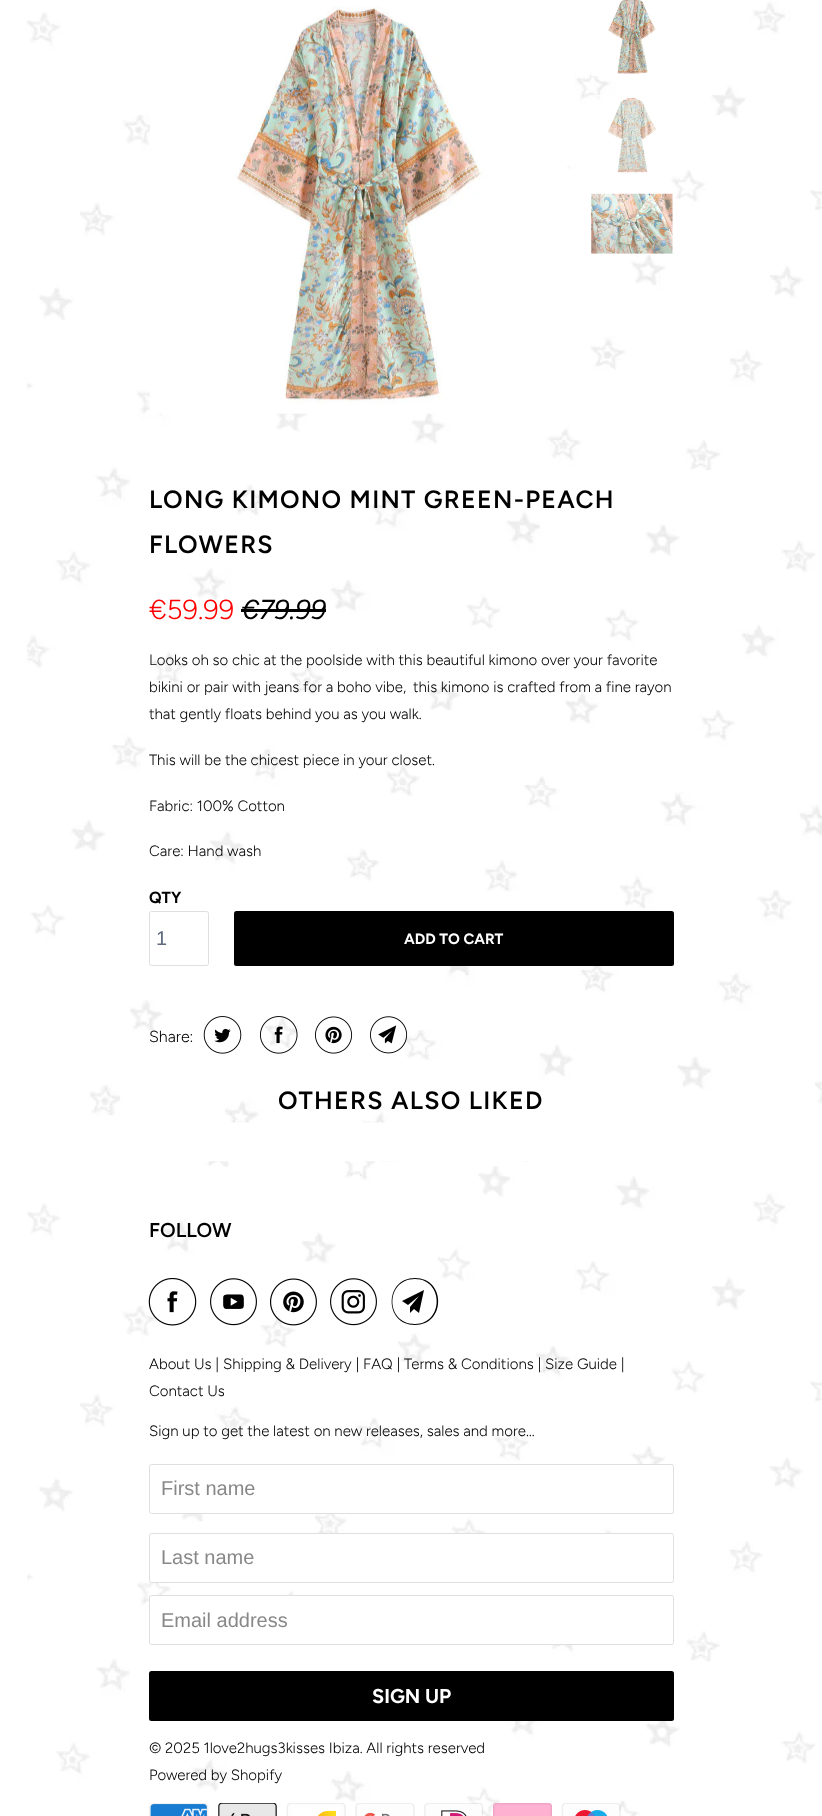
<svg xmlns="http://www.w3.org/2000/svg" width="822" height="1816">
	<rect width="100%" height="100%" fill="#FFFFFF" />
	<image x="26" y="0" width="796" height="1123" href="assets/img1.png" />
	<image x="150" y="0" width="418" height="414" href="assets/img2.png" />
	<image x="591" y="0" width="65" height="76" href="assets/img3.png" />
	<image x="592" y="95" width="64" height="79" href="assets/img4.png" />
	<image x="591" y="193" width="82" height="61" href="assets/img5.png" />
	<g font-family="Figtree" font-size="25" font-weight="600" letter-spacing="1.25" fill="#000000">
		<text x="149" y="508">LONG KIMONO MINT GREEN-PEACH</text>
		<text x="149" y="553">FLOWERS</text>
	</g>
	<text x="149" y="619" font-family="Figtree" font-size="27.5" font-weight="300" fill="#FF0000">€59.99</text>
	<text x="241" y="619" font-family="Figtree" font-size="27.5" font-style="italic" fill="#000000">€79.99</text>
	<rect x="241" y="609" width="85" height="3" fill="#000000" />
	<g font-family="Figtree" font-size="15" font-weight="300" fill="#000000">
		<text x="149" y="665">Looks oh so chic at the poolside with this beautiful kimono over your favorite</text>
		<text x="149" y="692">bikini or pair with jeans for a boho vibe,</text>
		<text x="413" y="692">this kimono is crafted from a fine rayon</text>
		<text x="149" y="719">that gently floats behind you as you walk.</text>
		<text x="149" y="765">This will be the chicest piece in your closet.</text>
		<text x="149" y="811">Fabric: 100% Cotton</text>
		<text x="149" y="856">Care: Hand wash</text>
	</g>
	<text x="149" y="903" font-family="Figtree" font-size="16" font-weight="700" fill="#000000">QTY</text>
	<rect x="149.5" y="911.5" width="59" height="54" rx="2" fill="#FFFFFF" stroke="#DFDFDF" />
	<text x="156" y="945" font-family="Liberation Sans" font-size="20" fill="#5F6A7D">1</text>
	<rect x="234" y="911" width="440" height="55" rx="2.5" fill="#000000" />
	<text x="404" y="944" font-family="Figtree" font-size="15" font-weight="700" fill="#FFFFFF">ADD TO CART</text>
	<text x="149" y="1042" font-family="Figtree" font-size="16" font-weight="300" fill="#000000">Share:</text>
	<image x="203" y="1016" width="39" height="38" href="assets/img6.png" />
	<image x="260" y="1016" width="38" height="38" href="assets/img7.png" />
	<image x="315" y="1016" width="38" height="38" href="assets/img8.png" />
	<image x="370" y="1016" width="38" height="38" href="assets/img9.png" />
	<text x="278" y="1109" font-family="Figtree" font-size="25" font-weight="600" letter-spacing="1.25" fill="#000000">OTHERS ALSO LIKED</text>
	<image x="27" y="1161" width="795" height="655" href="assets/img10.png" />
	<text x="149" y="1237" font-family="Figtree" font-size="20" font-weight="600" fill="#000000">FOLLOW</text>
	<image x="148" y="1278" width="49" height="48" href="assets/img11.png" />
	<image x="210" y="1278" width="47" height="48" href="assets/img12.png" />
	<image x="270" y="1278" width="47" height="48" href="assets/img13.png" />
	<image x="330" y="1278" width="47" height="48" href="assets/img14.png" />
	<path d="M419 1313L414 1309L410 1313V1307L419 1296L408 1305L402 1301L424 1290ZM415 1279C385 1279 385 1324 415 1324C444 1324 444 1279 415 1279ZM415 1325C384 1325 384 1278 415 1278C446 1278 446 1325 415 1325Z" fill="#000000" />
	<g font-family="Figtree" font-size="15" font-weight="300" fill="#000000">
		<text x="149" y="1369">About Us | Shipping &amp; Delivery | FAQ | Terms &amp; Conditions | Size Guide |</text>
		<text x="149" y="1396">Contact Us</text>
		<text x="149" y="1436">Sign up to get the latest on new releases, sales and more…</text>
	</g>
	<rect x="149.5" y="1464.5" width="524" height="49" rx="2" fill="#FFFFFF" stroke="#DFDFDF" />
	<text x="161" y="1495" font-family="Liberation Sans" font-size="20" fill="#888888">First name</text>
	<rect x="149.5" y="1533.5" width="524" height="49" rx="2" fill="#FFFFFF" stroke="#DFDFDF" />
	<text x="161" y="1564" font-family="Liberation Sans" font-size="20" fill="#888888">Last name</text>
	<rect x="149.5" y="1595.5" width="524" height="49" rx="2" fill="#FFFFFF" stroke="#DFDFDF" />
	<text x="161" y="1627" font-family="Liberation Sans" font-size="20" fill="#888888">Email address</text>
	<rect x="149" y="1671" width="525" height="50" rx="2.5" fill="#000000" />
	<text x="372" y="1703" font-family="Figtree" font-size="20" font-weight="700" fill="#FFFFFF">SIGN UP</text>
	<g font-family="Figtree" font-size="15" font-weight="300" fill="#000000">
		<text x="149" y="1753">© 2025 1love2hugs3kisses Ibiza. All rights reserved</text>
		<text x="149" y="1780">Powered by Shopify</text>
	</g>
	<image x="149" y="1803" width="60" height="13" href="assets/img15.png" />
	<image x="218" y="1803" width="59" height="13" href="assets/img16.png" />
	<image x="286" y="1803" width="60" height="13" href="assets/img17.png" />
	<image x="355" y="1803" width="60" height="13" href="assets/img18.png" />
	<image x="424" y="1803" width="59" height="13" href="assets/img19.png" />
	<image x="493" y="1803" width="59" height="13" href="assets/img20.png" />
	<image x="561" y="1803" width="60" height="13" href="assets/img21.png" />
</svg>
